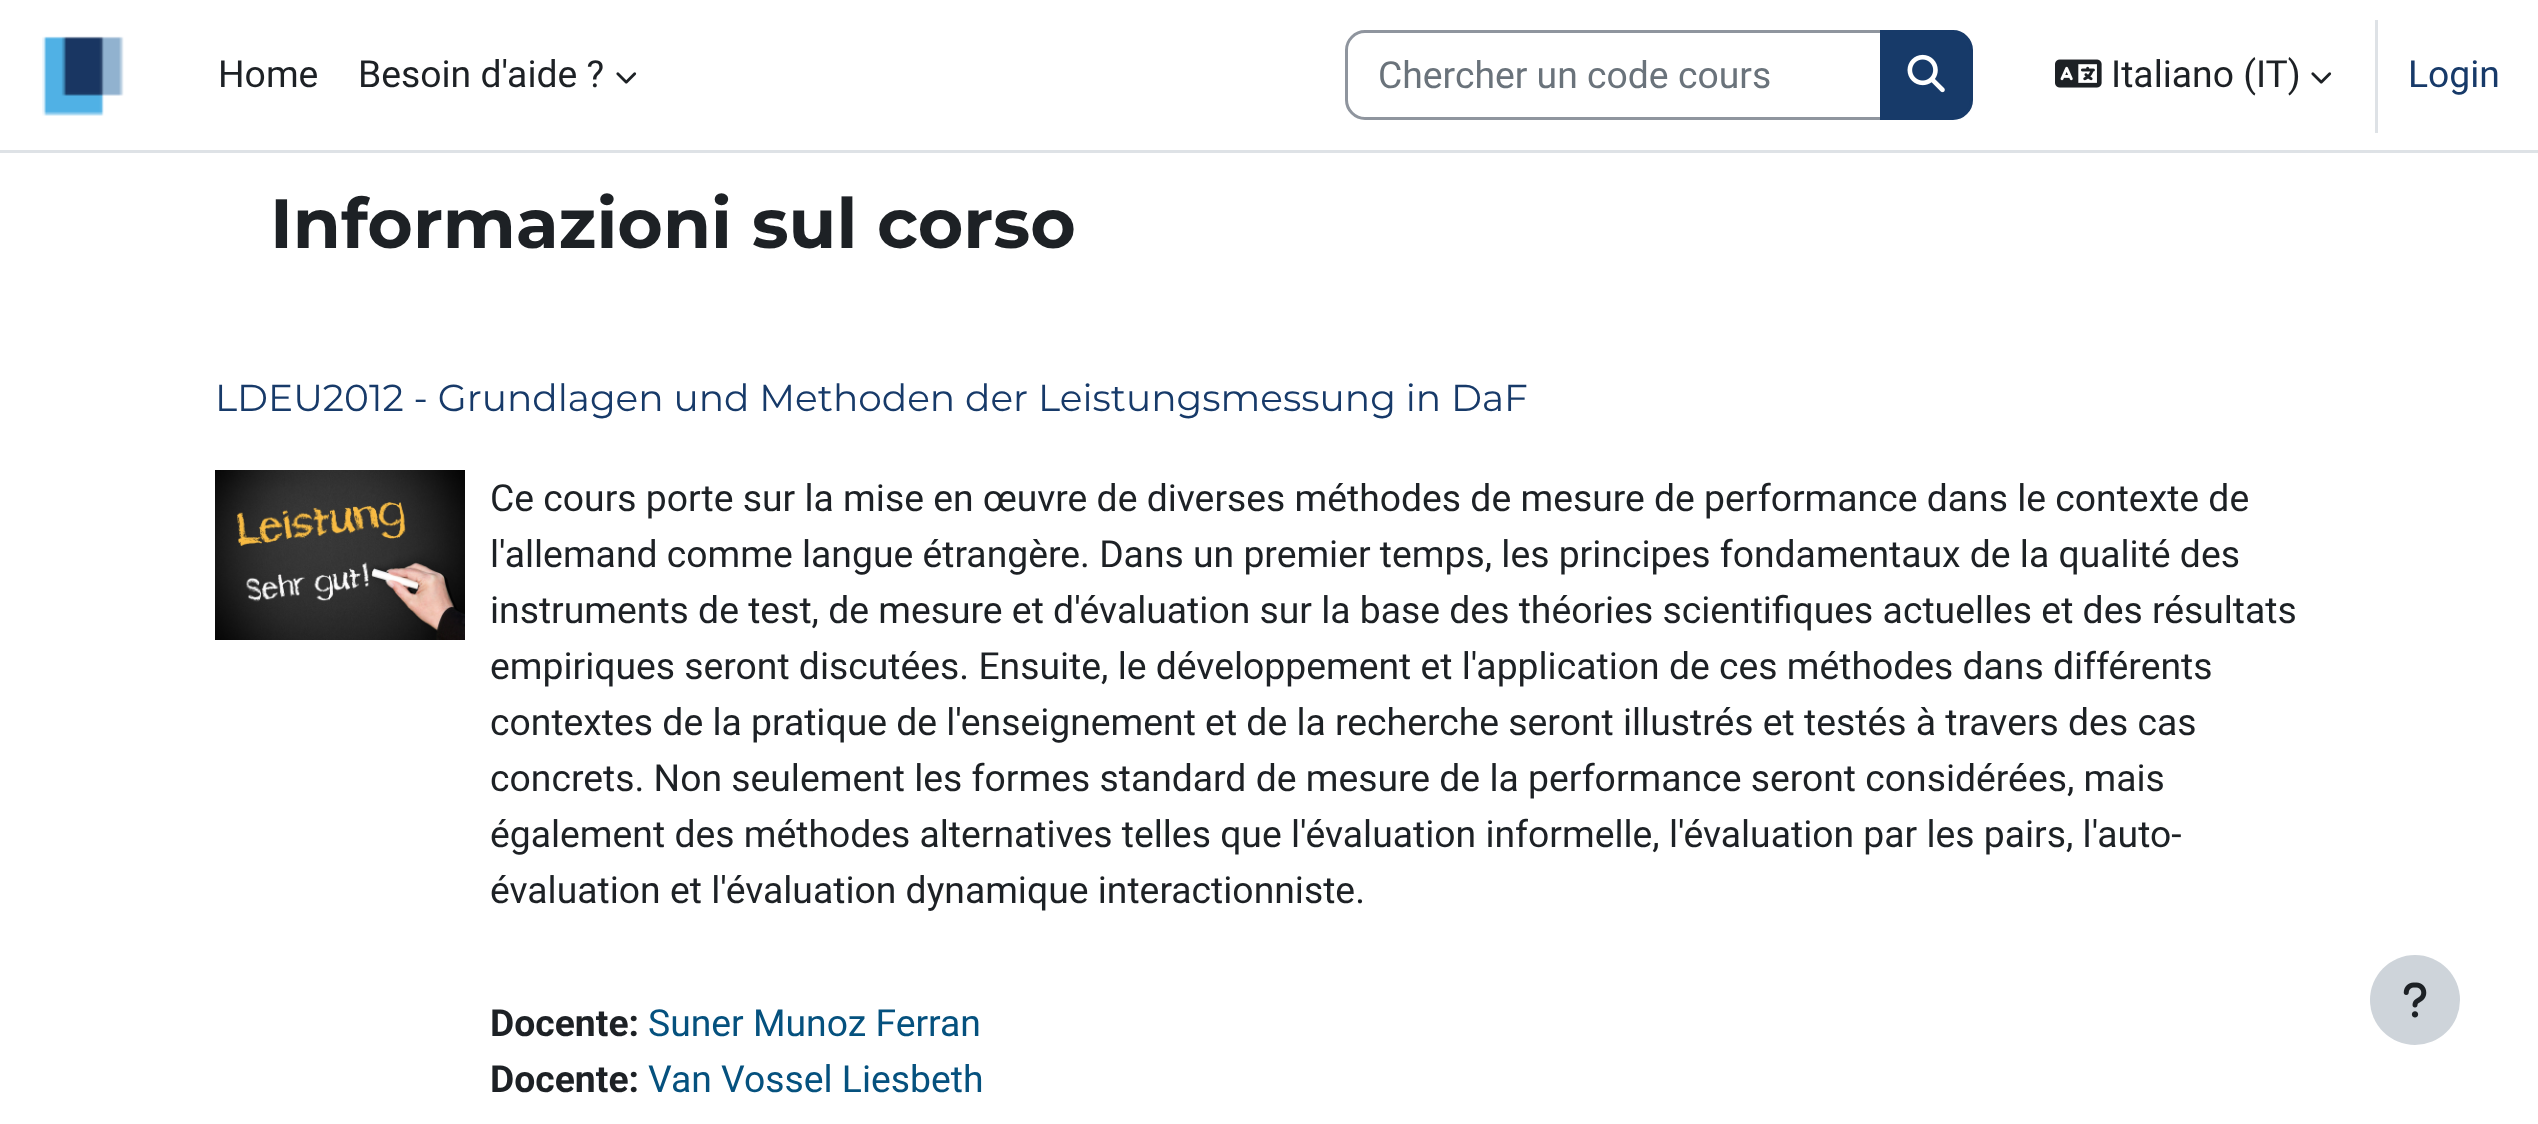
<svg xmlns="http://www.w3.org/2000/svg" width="2538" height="1124">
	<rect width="100%" height="100%" fill="#FFFFFF" />
	<rect x="0" y="150" width="2538" height="3" fill="#DEE2E6" />
	<image x="42" y="36" width="82" height="80" href="assets/img1.png" />
	<g font-family="Roboto" font-size="37.3" fill="#1D2125">
		<text x="218" y="87">Home</text>
		<text x="358" y="87">Besoin d'aide ?</text>
	</g>
	<image x="616" y="72" width="21" height="12" href="assets/img2.png" />
	<path d="M1365 31.5H1881.5V118.5H1365C1355 118.5 1346.5 110 1346.5 100V50C1346.5 40 1355 31.5 1365 31.5Z" fill="none" stroke="#8F959E" stroke-width="3" />
	<text x="1378" y="88" font-family="Roboto" font-size="37.3" fill="#6A737B">Chercher un code cours</text>
	<path d="M1881.5 31.5H1953C1963 31.5 1971.5 40 1971.5 50V100C1971.5 110 1963 118.5 1953 118.5H1881.5Z" fill="#173A69" stroke="#173A69" stroke-width="3" />
	<image x="1907" y="54" width="38" height="39" href="assets/img3.png" />
	<image x="2055" y="59" width="47" height="29" href="assets/img4.png" />
	<text x="2111" y="87" font-family="Roboto" font-size="37.3" fill="#1D2125">Italiano (IT)</text>
	<image x="2311" y="72" width="21" height="12" href="assets/img2.png" />
	<rect x="2375" y="20" width="3" height="113" fill="#DEE2E6" />
	<text x="2408" y="87" font-family="Roboto" font-size="37.3" fill="#173A69">Login</text>
	<text x="270" y="248" font-family="Montserrat" font-size="69.6" font-weight="700" fill="#1D2125">Informazioni sul corso</text>
	<text x="215" y="411" font-family="Montserrat" font-size="37.5" fill="#173A69">LDEU2012 - Grundlagen und Methoden der Leistungsmessung in DaF</text>
	<image x="215" y="470" width="250" height="170" href="assets/img5.png" />
	<g font-family="Roboto" font-size="37.3" fill="#1D2125">
		<text x="490" y="511">Ce cours porte sur la mise en œuvre de diverses méthodes de mesure de performance dans le contexte de</text>
		<text x="490" y="567">l'allemand comme langue étrangère. Dans un premier temps, les principes fondamentaux de la qualité des</text>
		<text x="490" y="623">instruments de test, de mesure et d'évaluation sur la base des théories scientifiques actuelles et des résultats</text>
		<text x="490" y="679">empiriques seront discutées. Ensuite, le développement et l'application de ces méthodes dans différents</text>
		<text x="490" y="735">contextes de la pratique de l'enseignement et de la recherche seront illustrés et testés à travers des cas</text>
		<text x="490" y="791">concrets. Non seulement les formes standard de mesure de la performance seront considérées, mais</text>
		<text x="490" y="847">également des méthodes alternatives telles que l'évaluation informelle, l'évaluation par les pairs, l'auto-</text>
		<text x="490" y="903">évaluation et l'évaluation dynamique interactionniste.</text>
	</g>
	<text x="490" y="1036" font-family="Roboto" font-size="37.3" font-weight="700" fill="#1D2125">Docente:</text>
	<text x="648" y="1036" font-family="Roboto" font-size="37.3" fill="#05517E">Suner Munoz Ferran</text>
	<text x="490" y="1092" font-family="Roboto" font-size="37.3" font-weight="700" fill="#1D2125">Docente:</text>
	<text x="648" y="1092" font-family="Roboto" font-size="37.3" fill="#05517E">Van Vossel Liesbeth</text>
	<circle cx="2415" cy="1000" r="45" fill="#CED4DA" />
	<image x="2403" y="982" width="24" height="36" href="assets/img6.png" />
</svg>
